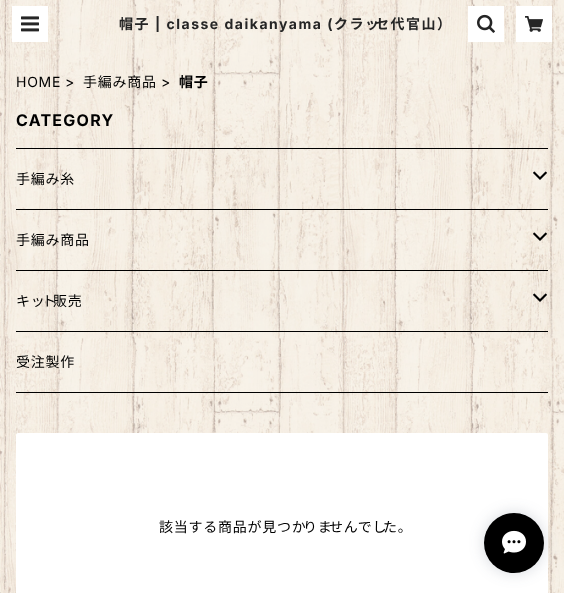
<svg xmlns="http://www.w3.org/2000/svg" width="564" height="593">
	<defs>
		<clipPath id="clip1"><rect x="119" y="16" width="326" height="16" /></clipPath>
	</defs>
	<rect width="100%" height="100%" fill="#FFFFFF" />
	<image x="0" y="0" width="564" height="593" href="assets/img1.png" />
	<rect x="12" y="6" width="36" height="36" fill="#FFFFFF" />
	<image x="21" y="16" width="18" height="16" href="assets/img2.png" />
	<text x="119" y="29" font-family="Noto Sans JP" font-size="14" font-weight="700" letter-spacing="1.5" fill="#252525">帽子</text>
	<g clip-path="url(#clip1)">
		<text x="155" y="29" font-family="Inter" font-size="14" font-weight="700" letter-spacing="1.5" fill="#252525">| classe daikanyama (</text>
	</g>
	<text x="334" y="29" font-family="Noto Sans JP" font-size="14" font-weight="700" letter-spacing="1.5" fill="#252525">クラッ</text>
	<text x="375" y="29" font-family="Noto Sans JP" font-size="14" font-weight="700" letter-spacing="1.5" fill="#252525">セ代官山）</text>
	<rect x="468" y="6" width="36" height="36" fill="#FFFFFF" />
	<image x="477" y="14" width="18" height="19" href="assets/img3.png" />
	<rect x="516" y="6" width="36" height="36" fill="#FFFFFF" />
	<image x="525" y="16" width="18" height="16" href="assets/img4.png" />
	<g font-family="Inter" font-size="14" letter-spacing="0.75" fill="#000000">
		<text x="16" y="87">HOME</text>
		<text x="65" y="87">&gt;</text>
	</g>
	<text x="83" y="87" font-family="Noto Sans JP" font-size="14" letter-spacing="0.75" fill="#000000">手編み商品</text>
	<text x="161" y="87" font-family="Inter" font-size="14" letter-spacing="0.75" fill="#000000">&gt;</text>
	<text x="179" y="87" font-family="Noto Sans JP" font-size="14" font-weight="700" letter-spacing="0.75" fill="#000000">帽子</text>
	<text x="16" y="126" font-family="Inter" font-size="16" font-weight="700" letter-spacing="1.25" fill="#000000">CATEGORY</text>
	<rect x="16" y="148" width="532" height="1" fill="#000000" />
	<rect x="16" y="392" width="532" height="1" fill="#000000" />
	<text x="16" y="184" font-family="Noto Sans JP" font-size="14" letter-spacing="0.75" fill="#000000">手編み糸</text>
	<image x="533" y="171" width="14" height="9" href="assets/img5.png" />
	<rect x="16" y="209" width="532" height="1" fill="#000000" />
	<text x="16" y="245" font-family="Noto Sans JP" font-size="14" letter-spacing="0.75" fill="#000000">手編み商品</text>
	<image x="533" y="232" width="14" height="9" href="assets/img6.png" />
	<rect x="16" y="270" width="532" height="1" fill="#000000" />
	<text x="16" y="306" font-family="Noto Sans JP" font-size="14" letter-spacing="0.75" fill="#000000">キッ</text>
	<text x="42" y="306" font-family="Noto Sans JP" font-size="14" letter-spacing="0.75" fill="#000000">ト</text>
	<text x="53" y="306" font-family="Noto Sans JP" font-size="14" letter-spacing="0.75" fill="#000000">販売</text>
	<image x="533" y="293" width="14" height="9" href="assets/img7.png" />
	<rect x="16" y="331" width="532" height="1" fill="#000000" />
	<text x="16" y="367" font-family="Noto Sans JP" font-size="14" letter-spacing="0.75" fill="#000000">受注製作</text>
	<rect x="16" y="433" width="532" height="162" rx="2" fill="#FFFFFF" />
	<text x="159" y="532" font-family="Noto Sans JP" font-size="14" letter-spacing="0.75" fill="#000000">該当する商品が見つか</text>
	<text x="303" y="532" font-family="Noto Sans JP" font-size="14" letter-spacing="0.75" fill="#000000">りま</text>
	<text x="329" y="532" font-family="Noto Sans JP" font-size="14" letter-spacing="0.75" fill="#000000">せんでし</text>
	<text x="383" y="532" font-family="Noto Sans JP" font-size="14" letter-spacing="0.75" fill="#000000">た。</text>
	<rect x="484" y="513" width="60" height="60" rx="30" fill="#334258" fill-opacity="0.2" filter="blur(7.5px)" />
	<circle cx="514" cy="543" r="30" fill="#000000" />
	<image x="502" y="530" width="24" height="24" href="assets/img8.png" />
</svg>
